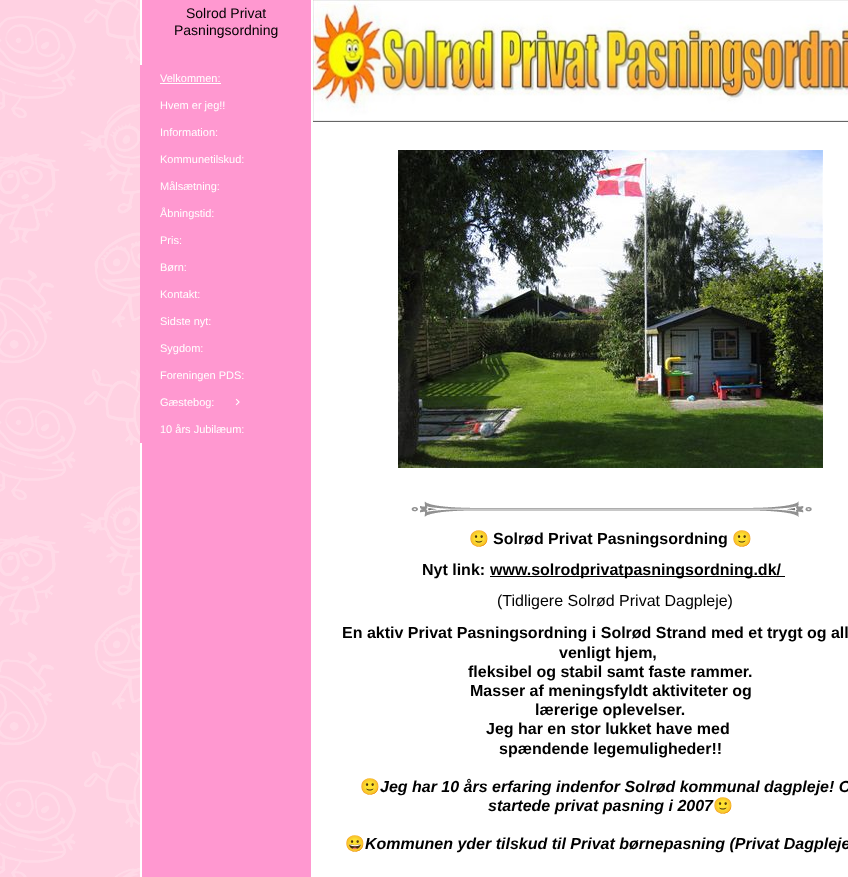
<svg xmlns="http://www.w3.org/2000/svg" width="848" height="877">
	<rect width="100%" height="100%" fill="#FFD1E2" />
	<image x="0" y="0" width="140" height="877" href="assets/img1.png" />
	<rect x="140" y="0" width="708" height="877" fill="#FFFFFF" />
	<rect x="142" y="0" width="169" height="877" fill="#FF98D0" />
	<g font-family="Liberation Sans" font-size="14" fill="#000000">
		<text x="186" y="18">Solrod Privat</text>
		<text x="174" y="35">Pasningsordning</text>
	</g>
	<image x="313" y="0" width="535" height="121" href="assets/img2.png" />
	<rect x="313" y="121" width="535" height="1" fill="#666666" />
	<image x="398" y="150" width="425" height="318" href="assets/img3.png" />
	<image x="411" y="501" width="401" height="16" href="assets/img4.png" />
	<text x="469" y="544" font-family="Noto Color Emoji" font-size="16" font-weight="700" fill="#000000">🙂</text>
	<text x="493" y="544" font-family="Liberation Sans" font-size="16" font-weight="700" fill="#000000">Solrød Privat Pasningsordning</text>
	<text x="732" y="544" font-family="Noto Color Emoji" font-size="16" font-weight="700" fill="#000000">🙂</text>
	<text x="422" y="575" font-family="Liberation Sans" font-size="16" font-weight="700" fill="#000000">Nyt link:</text>
	<rect x="490" y="576" width="295" height="1" fill="#000000" />
	<text x="490" y="575" font-family="Liberation Sans" font-size="16" font-weight="700" fill="#000000">www.solrodprivatpasningsordning.dk/</text>
	<text x="497" y="606" font-family="Liberation Sans" font-size="16" fill="#000000">(Tidligere Solrød Privat Dagpleje)</text>
	<g font-family="Liberation Sans" font-size="16" font-weight="700" fill="#000000">
		<text x="342" y="638">En aktiv Privat Pasningsordning i Solrød Strand med et trygt og all</text>
		<text x="559" y="658">venligt hjem,</text>
		<text x="468" y="677">fleksibel og stabil samt faste rammer.</text>
		<text x="470" y="696">Masser af meningsfyldt aktiviteter og</text>
		<text x="535" y="715">lærerige oplevelser.</text>
		<text x="486" y="734">Jeg har en stor lukket have med</text>
		<text x="499" y="754">spændende legemuligheder!!</text>
	</g>
	<text x="360" y="792" font-family="Noto Color Emoji" font-size="16" font-weight="700" fill="#000000">🙂</text>
	<g font-family="Liberation Sans" font-size="16" font-weight="700" font-style="italic" fill="#000000">
		<text x="380" y="792">Jeg har 10 års erfaring indenfor Solrød kommunal dagpleje! O</text>
		<text x="488" y="811">startede privat pasning i 2007</text>
	</g>
	<g font-family="Noto Color Emoji" font-size="16" font-weight="700" fill="#000000">
		<text x="713" y="811">🙂</text>
		<text x="345" y="849">😀</text>
	</g>
	<text x="365" y="849" font-family="Liberation Sans" font-size="16" font-weight="700" font-style="italic" fill="#000000">Kommunen yder tilskud til Privat børnepasning (Privat Dagpleje</text>
	<rect x="140" y="65" width="2" height="378" fill="#FF98D0" />
	<text x="160" y="82" font-family="Liberation Sans" font-size="11" fill="#FFFFFF">Velkommen:</text>
	<rect x="160" y="83" width="61" height="1" fill="#FFFFFF" />
	<g font-family="Liberation Sans" font-size="11" fill="#FFFFFF">
		<text x="160" y="109">Hvem er jeg!!</text>
		<text x="160" y="136">Information:</text>
		<text x="160" y="163">Kommunetilskud:</text>
		<text x="160" y="190">Målsætning:</text>
		<text x="160" y="217">Åbningstid:</text>
		<text x="160" y="244">Pris:</text>
		<text x="160" y="271">Børn:</text>
		<text x="160" y="298">Kontakt:</text>
		<text x="160" y="325">Sidste nyt:</text>
		<text x="160" y="352">Sygdom:</text>
		<text x="160" y="379">Foreningen PDS:</text>
		<text x="160" y="406">Gæstebog:</text>
	</g>
	<image x="235" y="398" width="5" height="8" href="assets/img5.png" />
	<text x="160" y="433" font-family="Liberation Sans" font-size="11" fill="#FFFFFF">10 års Jubilæum:</text>
</svg>
